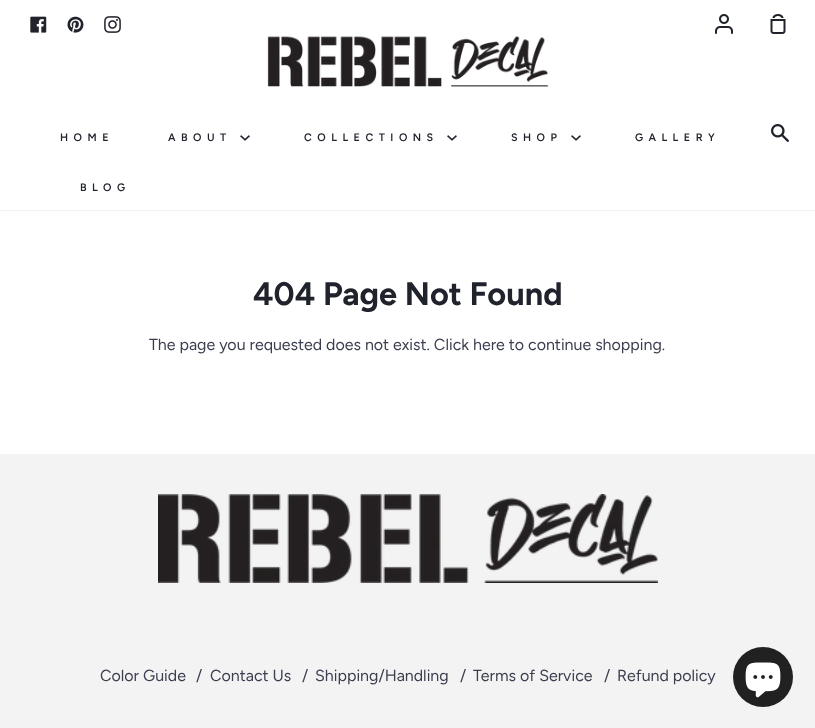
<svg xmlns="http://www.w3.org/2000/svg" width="815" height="728">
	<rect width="100%" height="100%" fill="#FFFFFF" />
	<rect x="0" y="210" width="815" height="1" fill="#F2F2F2" />
	<image x="30" y="16" width="17" height="17" href="assets/img1.png" />
	<image x="67" y="16" width="17" height="17" href="assets/img2.png" />
	<image x="104" y="16" width="17" height="17" href="assets/img3.png" />
	<image x="715" y="14" width="18" height="20" href="assets/img4.png" />
	<image x="770" y="14" width="16" height="20" href="assets/img5.png" />
	<image x="267" y="36" width="281" height="51" href="assets/img6.png" />
	<g font-family="Figtree" font-size="10.75" font-weight="600" letter-spacing="5.5" fill="#21232C">
		<text x="60" y="141">HOME</text>
		<text x="168" y="141">ABOUT</text>
	</g>
	<image x="240" y="135" width="10" height="6" href="assets/img7.png" />
	<text x="304" y="141" font-family="Figtree" font-size="10.75" font-weight="600" letter-spacing="5.5" fill="#21232C">COLLECTIONS</text>
	<image x="447" y="135" width="10" height="6" href="assets/img7.png" />
	<text x="511" y="141" font-family="Figtree" font-size="10.75" font-weight="600" letter-spacing="5.5" fill="#21232C">SHOP</text>
	<image x="571" y="135" width="10" height="6" href="assets/img7.png" />
	<g font-family="Figtree" font-size="10.75" font-weight="600" letter-spacing="5.5" fill="#21232C">
		<text x="635" y="141">GALLERY</text>
		<text x="80" y="191">BLOG</text>
	</g>
	<image x="771" y="124" width="18" height="18" href="assets/img8.png" />
	<text x="253" y="305" font-family="Figtree" font-size="32.5" font-weight="700" fill="#21232C">404 Page Not Found</text>
	<text x="149" y="350" font-family="Figtree" font-size="16" fill="#3B3E4F">The page you requested does not exist. Click here to continue shopping.</text>
	<rect x="0" y="454" width="815" height="274" fill="#F3F3F3" />
	<image x="158" y="494" width="500" height="89" href="assets/img9.png" />
	<g font-family="Figtree" font-size="16" fill="#3B3E4F">
		<text x="100" y="681">Color Guide</text>
		<text x="196" y="681">/</text>
		<text x="210" y="681">Contact Us</text>
		<text x="302" y="681">/</text>
		<text x="315" y="681">Shipping/Handling</text>
		<text x="460" y="681">/</text>
		<text x="473" y="681">Terms of Service</text>
		<text x="604" y="681">/</text>
		<text x="617" y="681">Refund policy</text>
	</g>
	<circle cx="763" cy="677" r="30" fill="#212121" />
	<image x="745" y="662" width="36" height="36" href="assets/img10.png" />
</svg>
